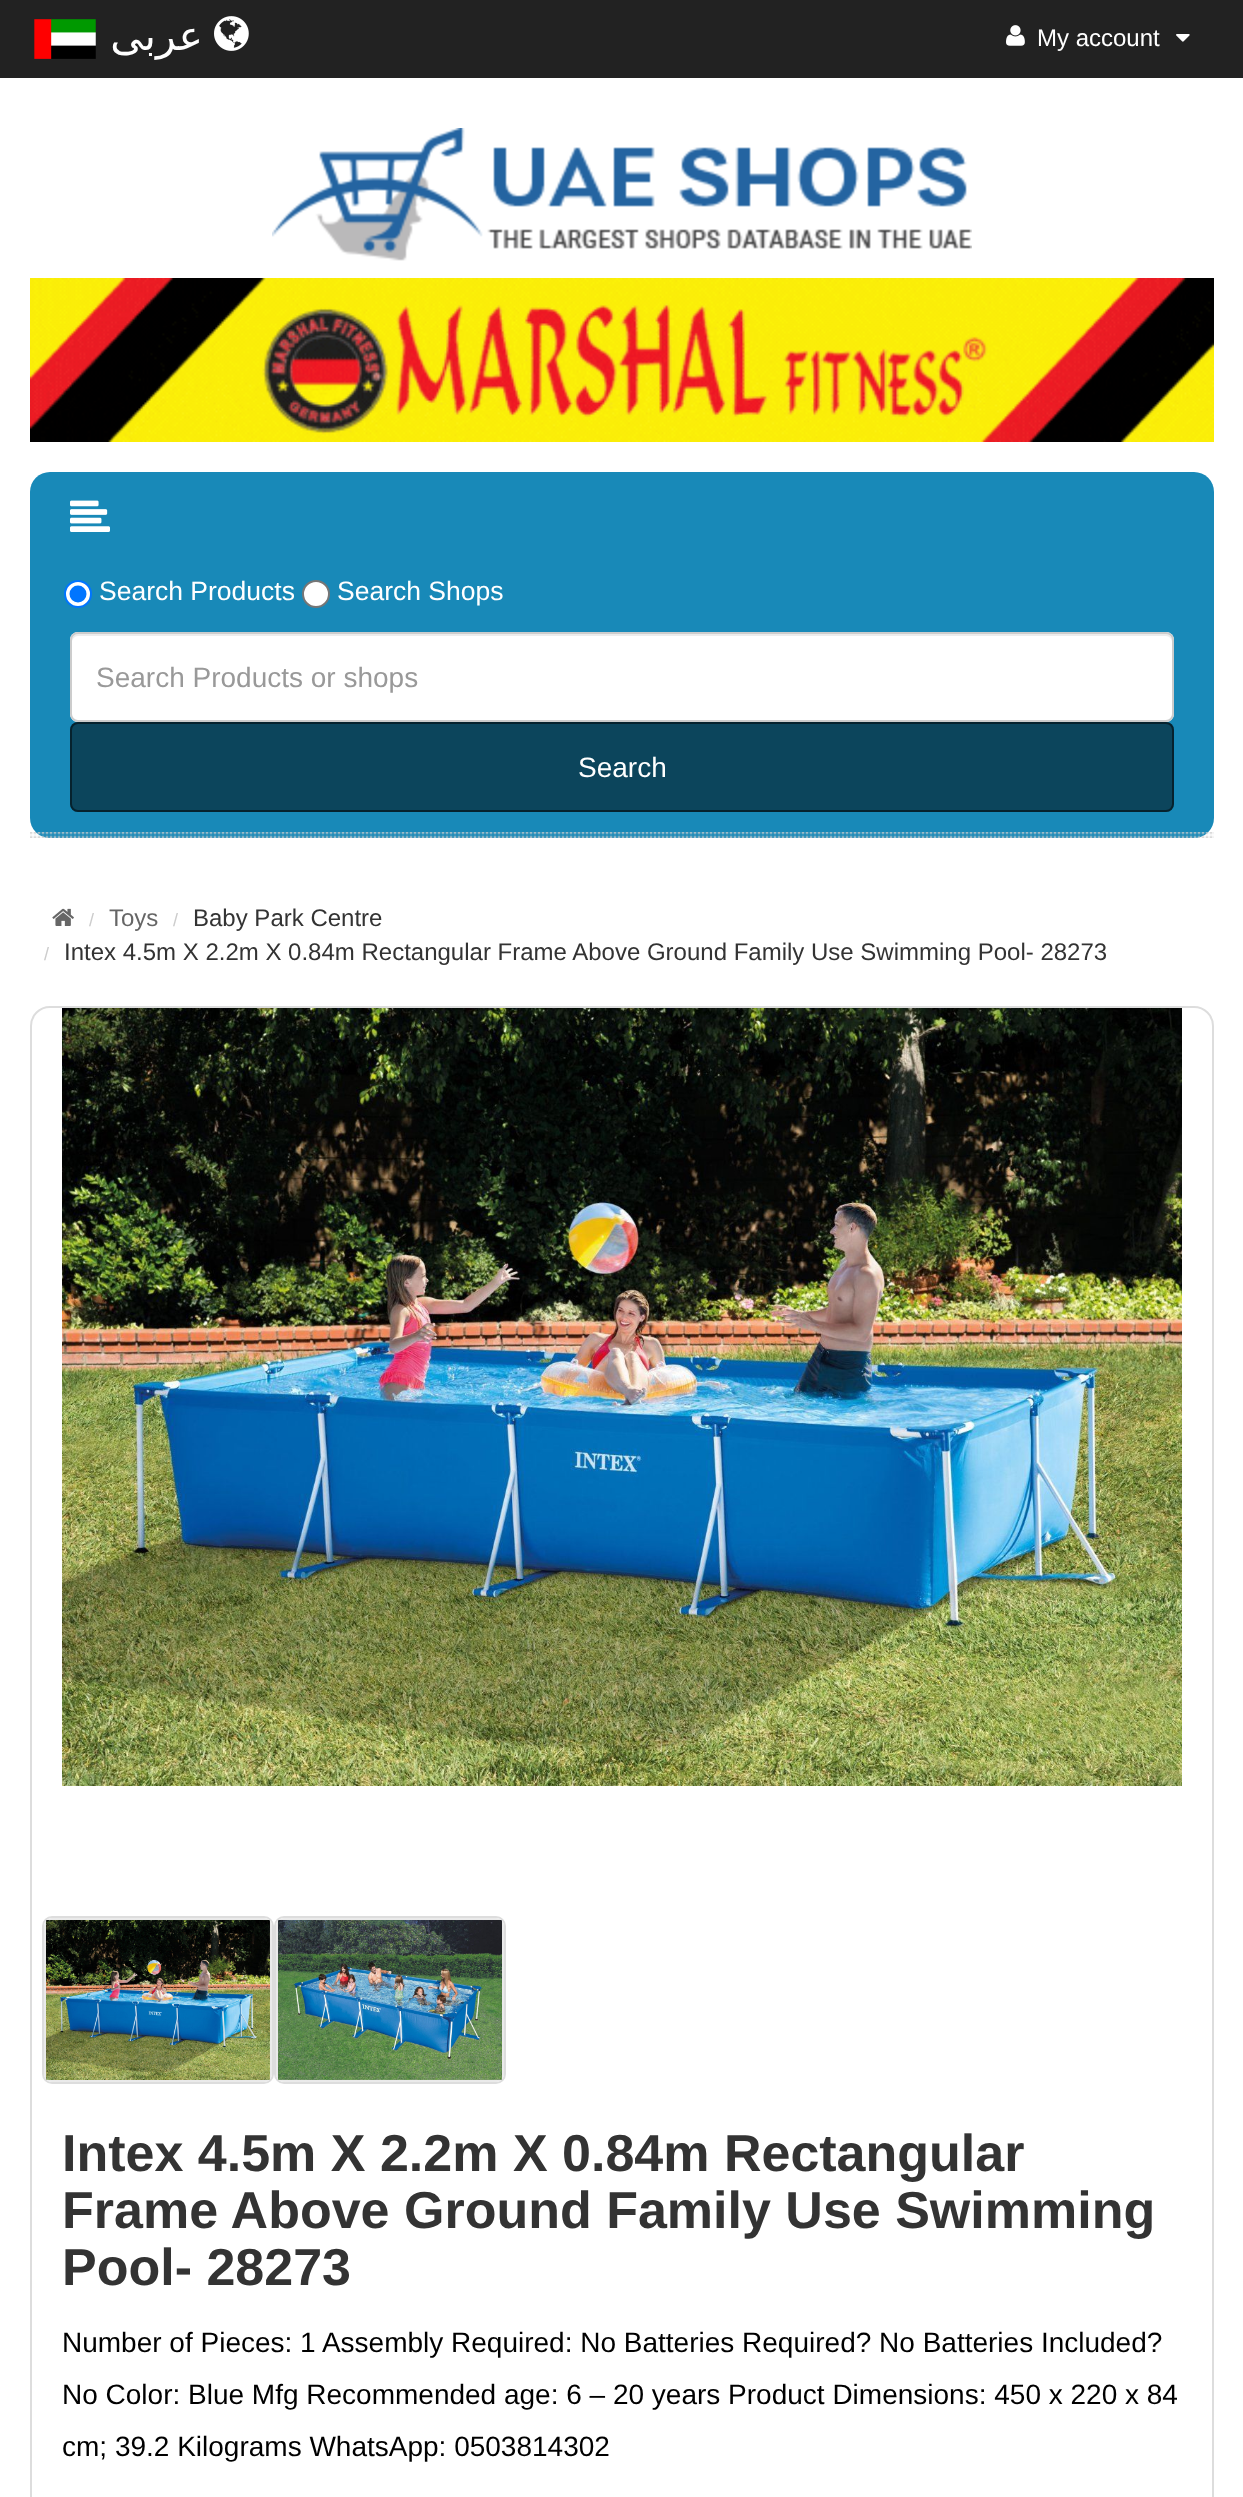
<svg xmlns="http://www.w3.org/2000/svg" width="1243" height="2497">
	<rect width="100%" height="100%" fill="#FFFFFF" />
	<rect x="0" y="0" width="1243" height="78" fill="#222222" />
	<image x="34" y="19" width="62" height="40" href="assets/img1.png" />
	<text x="203" y="50" font-family="DejaVu Sans" font-size="41" direction="rtl" fill="#FFFFFF">عربى</text>
	<image x="214" y="16" width="35" height="35" href="assets/img2.png" />
	<image x="1006" y="25" width="19" height="21" href="assets/img3.png" />
	<text x="1037" y="46" font-family="Liberation Sans" font-size="24" fill="#FFFFFF">My account</text>
	<image x="1176" y="34" width="14" height="8" href="assets/img4.png" />
	<image x="272" y="128" width="700" height="133" href="assets/img5.png" />
	<image x="30" y="278" width="1184" height="164" href="assets/img6.png" />
	<rect x="30" y="472" width="1184" height="366" rx="20" fill="#1889B8" />
	<image x="70" y="500" width="40" height="32" href="assets/img7.png" />
	<circle cx="78" cy="594" r="13" fill="#FFFFFF" stroke="#0075FF" stroke-width="2" />
	<circle cx="78" cy="594" r="8.5" fill="#0075FF" />
	<text x="99" y="600" font-family="Liberation Sans" font-size="26.5" fill="#FFFFFF">Search Products</text>
	<circle cx="316" cy="594" r="13" fill="#FFFFFF" stroke="#767676" stroke-width="2" />
	<text x="337" y="600" font-family="Liberation Sans" font-size="26.5" fill="#FFFFFF">Search Shops</text>
	<rect x="70" y="632" width="1104" height="90" rx="8" fill="#FFFFFF" />
	<path d="M78 636H1166C1169 636 1172 639 1172 642V640C1172 637 1169 634 1166 634H78C75 634 72 637 72 640V642C72 639 75 636 78 636Z" fill="#ECECEC" />
	<rect x="71" y="633" width="1102" height="88" rx="7" fill="none" stroke="#CCCCCC" stroke-width="2" />
	<text x="96" y="687" font-family="Liberation Sans" font-size="28" fill="#999999">Search Products or shops</text>
	<rect x="70" y="722" width="1104" height="90" rx="8" fill="#0C455C" />
	<rect x="71" y="723" width="1102" height="88" rx="7" fill="none" stroke="#000000" stroke-opacity="0.5" stroke-width="2" />
	<text x="578" y="777" font-family="Liberation Sans" font-size="28" fill="#FFFFFF">Search</text>
	<image x="30" y="832" width="1184" height="6" href="assets/img8.png" />
	<image x="52" y="908" width="22" height="18" href="assets/img9.png" />
	<text x="89" y="926" font-family="Liberation Sans" font-size="18" fill="#CCCCCC">/</text>
	<text x="109" y="926" font-family="Liberation Sans" font-size="24" fill="#666666">Toys</text>
	<text x="173" y="926" font-family="Liberation Sans" font-size="18" fill="#CCCCCC">/</text>
	<text x="193" y="926" font-family="Liberation Sans" font-size="24" fill="#333333">Baby Park Centre</text>
	<text x="44" y="960" font-family="Liberation Sans" font-size="18" fill="#CCCCCC">/</text>
	<text x="64" y="960" font-family="Liberation Sans" font-size="24" fill="#333333">Intex 4.5m X 2.2m X 0.84m Rectangular Frame Above Ground Family Use Swimming Pool- 28273</text>
	<rect x="31" y="1007" width="1182" height="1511" rx="19" fill="none" stroke="#DDDDDD" stroke-width="2" />
	<image x="62" y="1008" width="1120" height="778" href="assets/img10.png" />
	<rect x="43" y="1917" width="230" height="166" rx="9" fill="none" stroke="#DDDDDD" stroke-width="2" />
	<path d="M52 1918C48 1918 44 1922 44 1926V2074C44 2078 48 2082 52 2082H264C268 2082 271 2079 272 2075V1925C271 1921 268 1918 264 1918Z" fill="#EAEAEA" />
	<image x="46" y="1920" width="224" height="160" href="assets/img11.png" />
	<rect x="275" y="1917" width="230" height="166" rx="9" fill="none" stroke="#DDDDDD" stroke-width="2" />
	<path d="M284 1918C280 1918 276 1922 276 1926V2074C276 2078 280 2082 284 2082H496C500 2082 503 2079 504 2075V1925C503 1921 500 1918 496 1918Z" fill="#EAEAEA" />
	<image x="278" y="1920" width="224" height="160" href="assets/img12.png" />
	<g font-family="Liberation Sans" font-size="52" font-weight="700" fill="#333333">
		<text x="62" y="2171">Intex 4.5m X 2.2m X 0.84m Rectangular</text>
		<text x="62" y="2228">Frame Above Ground Family Use Swimming</text>
		<text x="62" y="2285">Pool- 28273</text>
	</g>
	<g font-family="Liberation Sans" font-size="28" fill="#000000">
		<text x="62" y="2352">Number of Pieces: 1 Assembly Required: No Batteries Required? No Batteries Included?</text>
		<text x="62" y="2404">No Color: Blue Mfg Recommended age: 6 – 20 years Product Dimensions: 450 x 220 x 84</text>
		<text x="62" y="2456">cm; 39.2 Kilograms WhatsApp: 0503814302</text>
	</g>
</svg>
